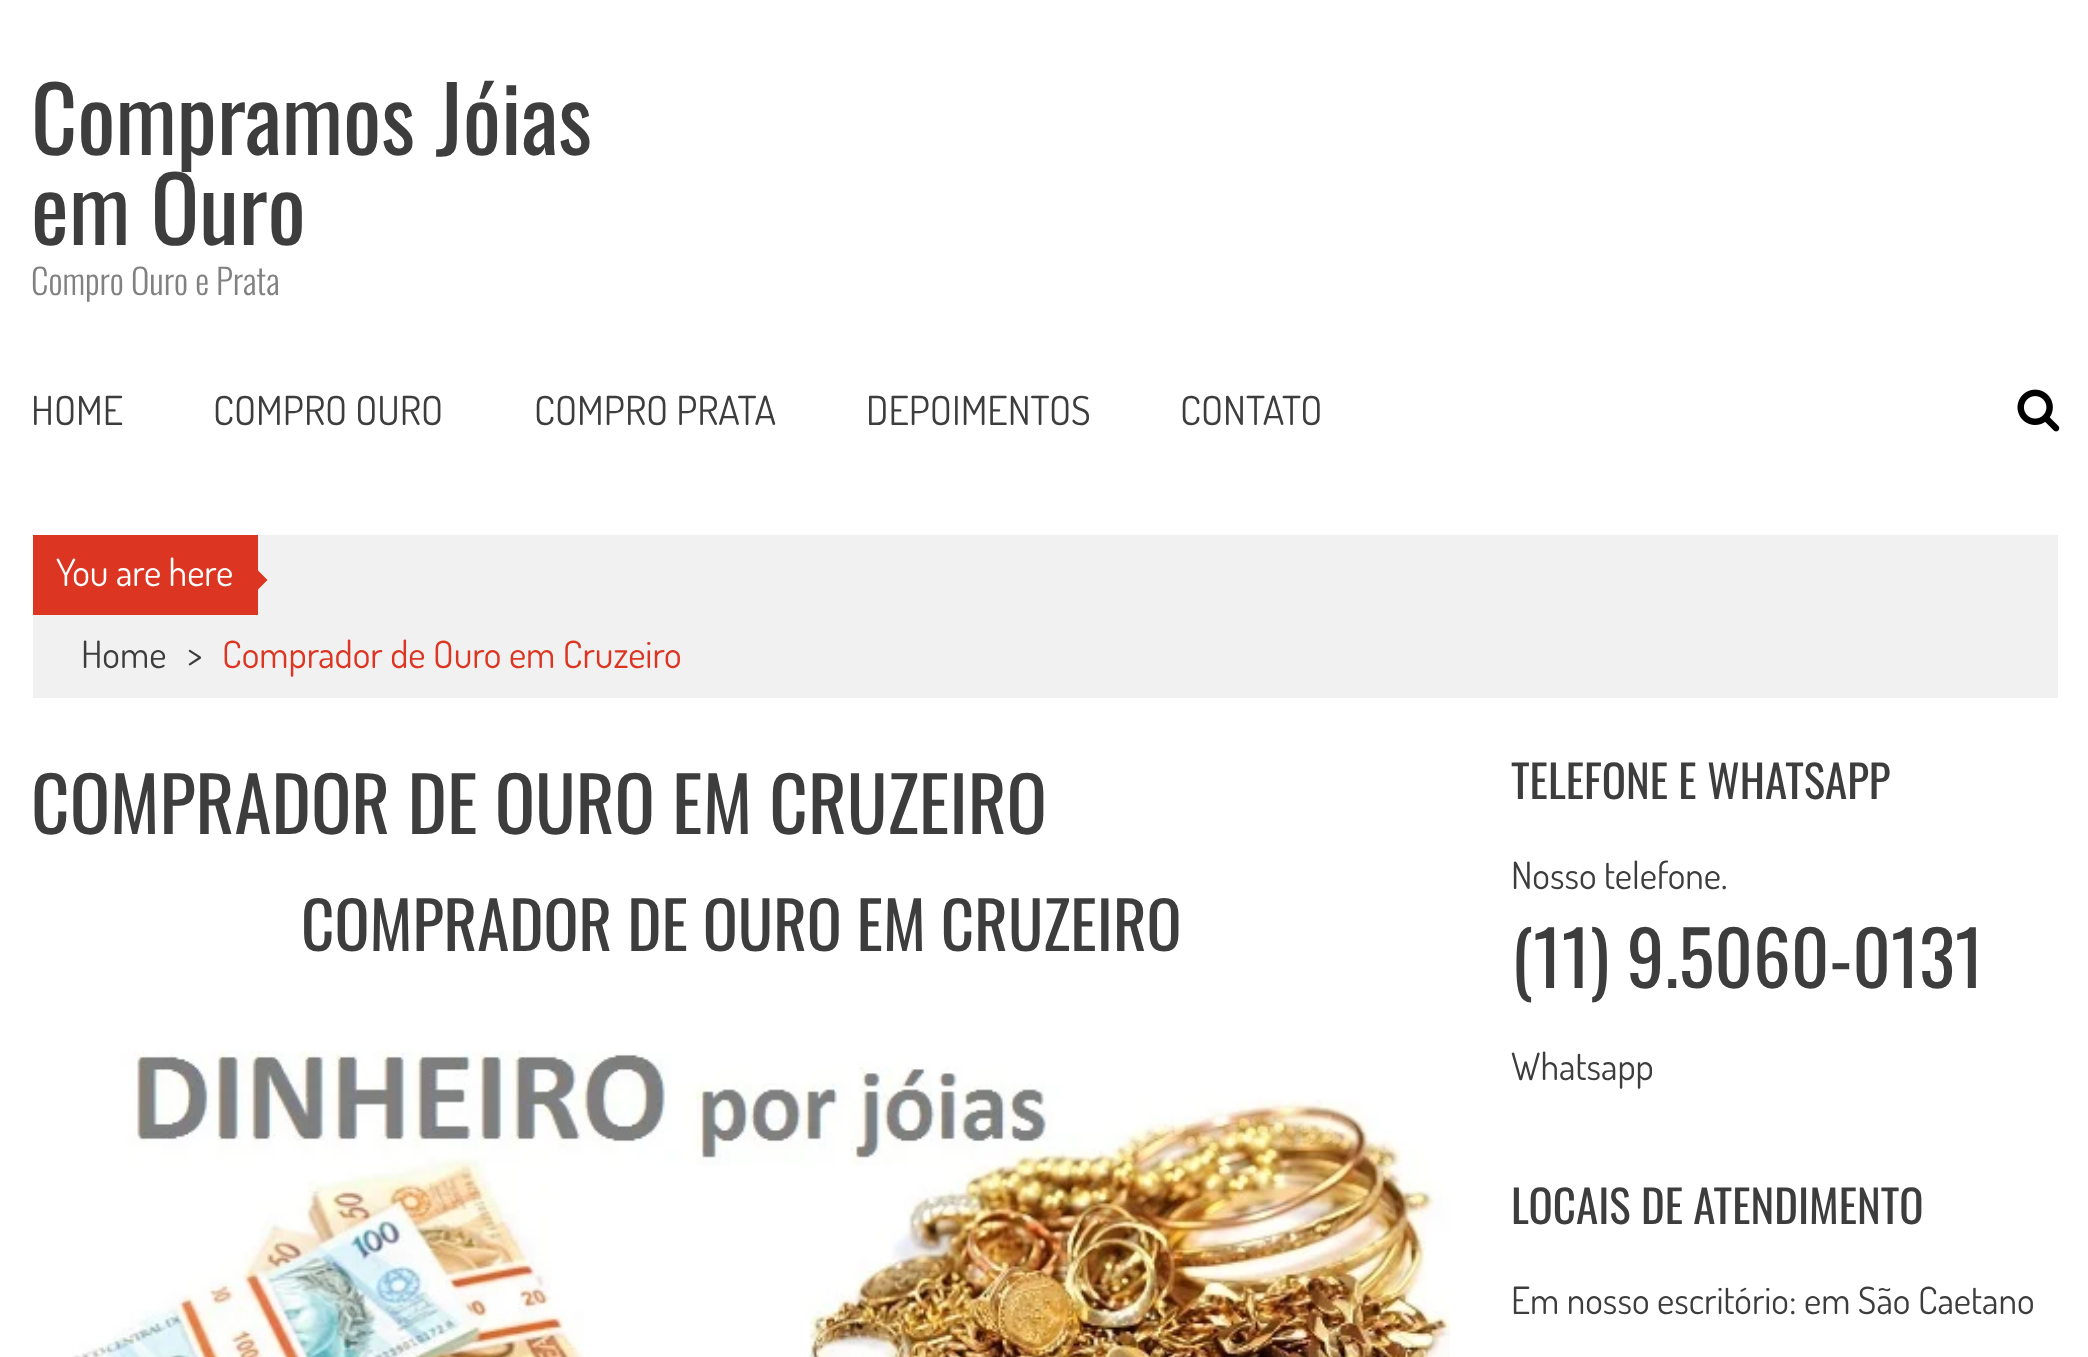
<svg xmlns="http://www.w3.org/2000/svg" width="2088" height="1357">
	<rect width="100%" height="100%" fill="#FFFFFF" />
	<g font-family="Oswald" font-size="90" fill="#3D3D3D">
		<text x="31" y="155">Compramos Jóias</text>
		<text x="31" y="245">em Ouro</text>
	</g>
	<text x="31" y="295" font-family="Oswald" font-size="35" font-weight="300" fill="#818181">Compro Ouro e Prata</text>
	<g font-family="Dosis" font-size="40" fill="#3D3D3D">
		<text x="31" y="425">HOME</text>
		<text x="213" y="425">COMPRO OURO</text>
		<text x="534" y="425">COMPRO PRATA</text>
		<text x="866" y="425">DEPOIMENTOS</text>
		<text x="1180" y="425">CONTATO</text>
	</g>
	<image x="2017" y="389" width="43" height="43" href="assets/img1.png" />
	<rect x="33" y="535" width="2025" height="163" fill="#F1F1F1" />
	<rect x="33" y="535" width="225" height="80" fill="#DC3522" />
	<text x="56" y="586" font-family="Dosis" font-size="37.5" fill="#FFFFFF">You are here</text>
	<path d="M255 592.5V567.5L267.5 580Z" fill="#DC3522" />
	<g font-family="Dosis" font-size="37.5" fill="#3D3D3D">
		<text x="81" y="668">Home</text>
		<text x="187" y="668">&gt;</text>
	</g>
	<text x="222" y="668" font-family="Dosis" font-size="37.5" fill="#DC3522">Comprador de Ouro em Cruzeiro</text>
	<text x="31" y="834" font-family="Oswald" font-size="75" fill="#3D3D3D">COMPRADOR DE OURO EM CRUZEIRO</text>
	<text x="301" y="951" font-family="Oswald" font-size="65" fill="#3D3D3D">COMPRADOR DE OURO EM CRUZEIRO</text>
	<image x="72" y="1050" width="1378" height="307" href="assets/img2.png" />
	<text x="1511" y="799" font-family="Oswald" font-size="45" fill="#3D3D3D">TELEFONE E WHATSAPP</text>
	<text x="1511" y="889" font-family="Dosis" font-size="37.5" fill="#3D3D3D">Nosso telefone.</text>
	<text x="1511" y="988" font-family="Oswald" font-size="75" fill="#3D3D3D">(11) 9.5060-0131</text>
	<text x="1511" y="1080" font-family="Dosis" font-size="37.5" fill="#3D3D3D">Whatsapp</text>
	<text x="1511" y="1224" font-family="Oswald" font-size="45" fill="#3D3D3D">LOCAIS DE ATENDIMENTO</text>
	<text x="1511" y="1314" font-family="Dosis" font-size="37.5" fill="#3D3D3D">Em nosso escritório: em São Caetano</text>
</svg>
